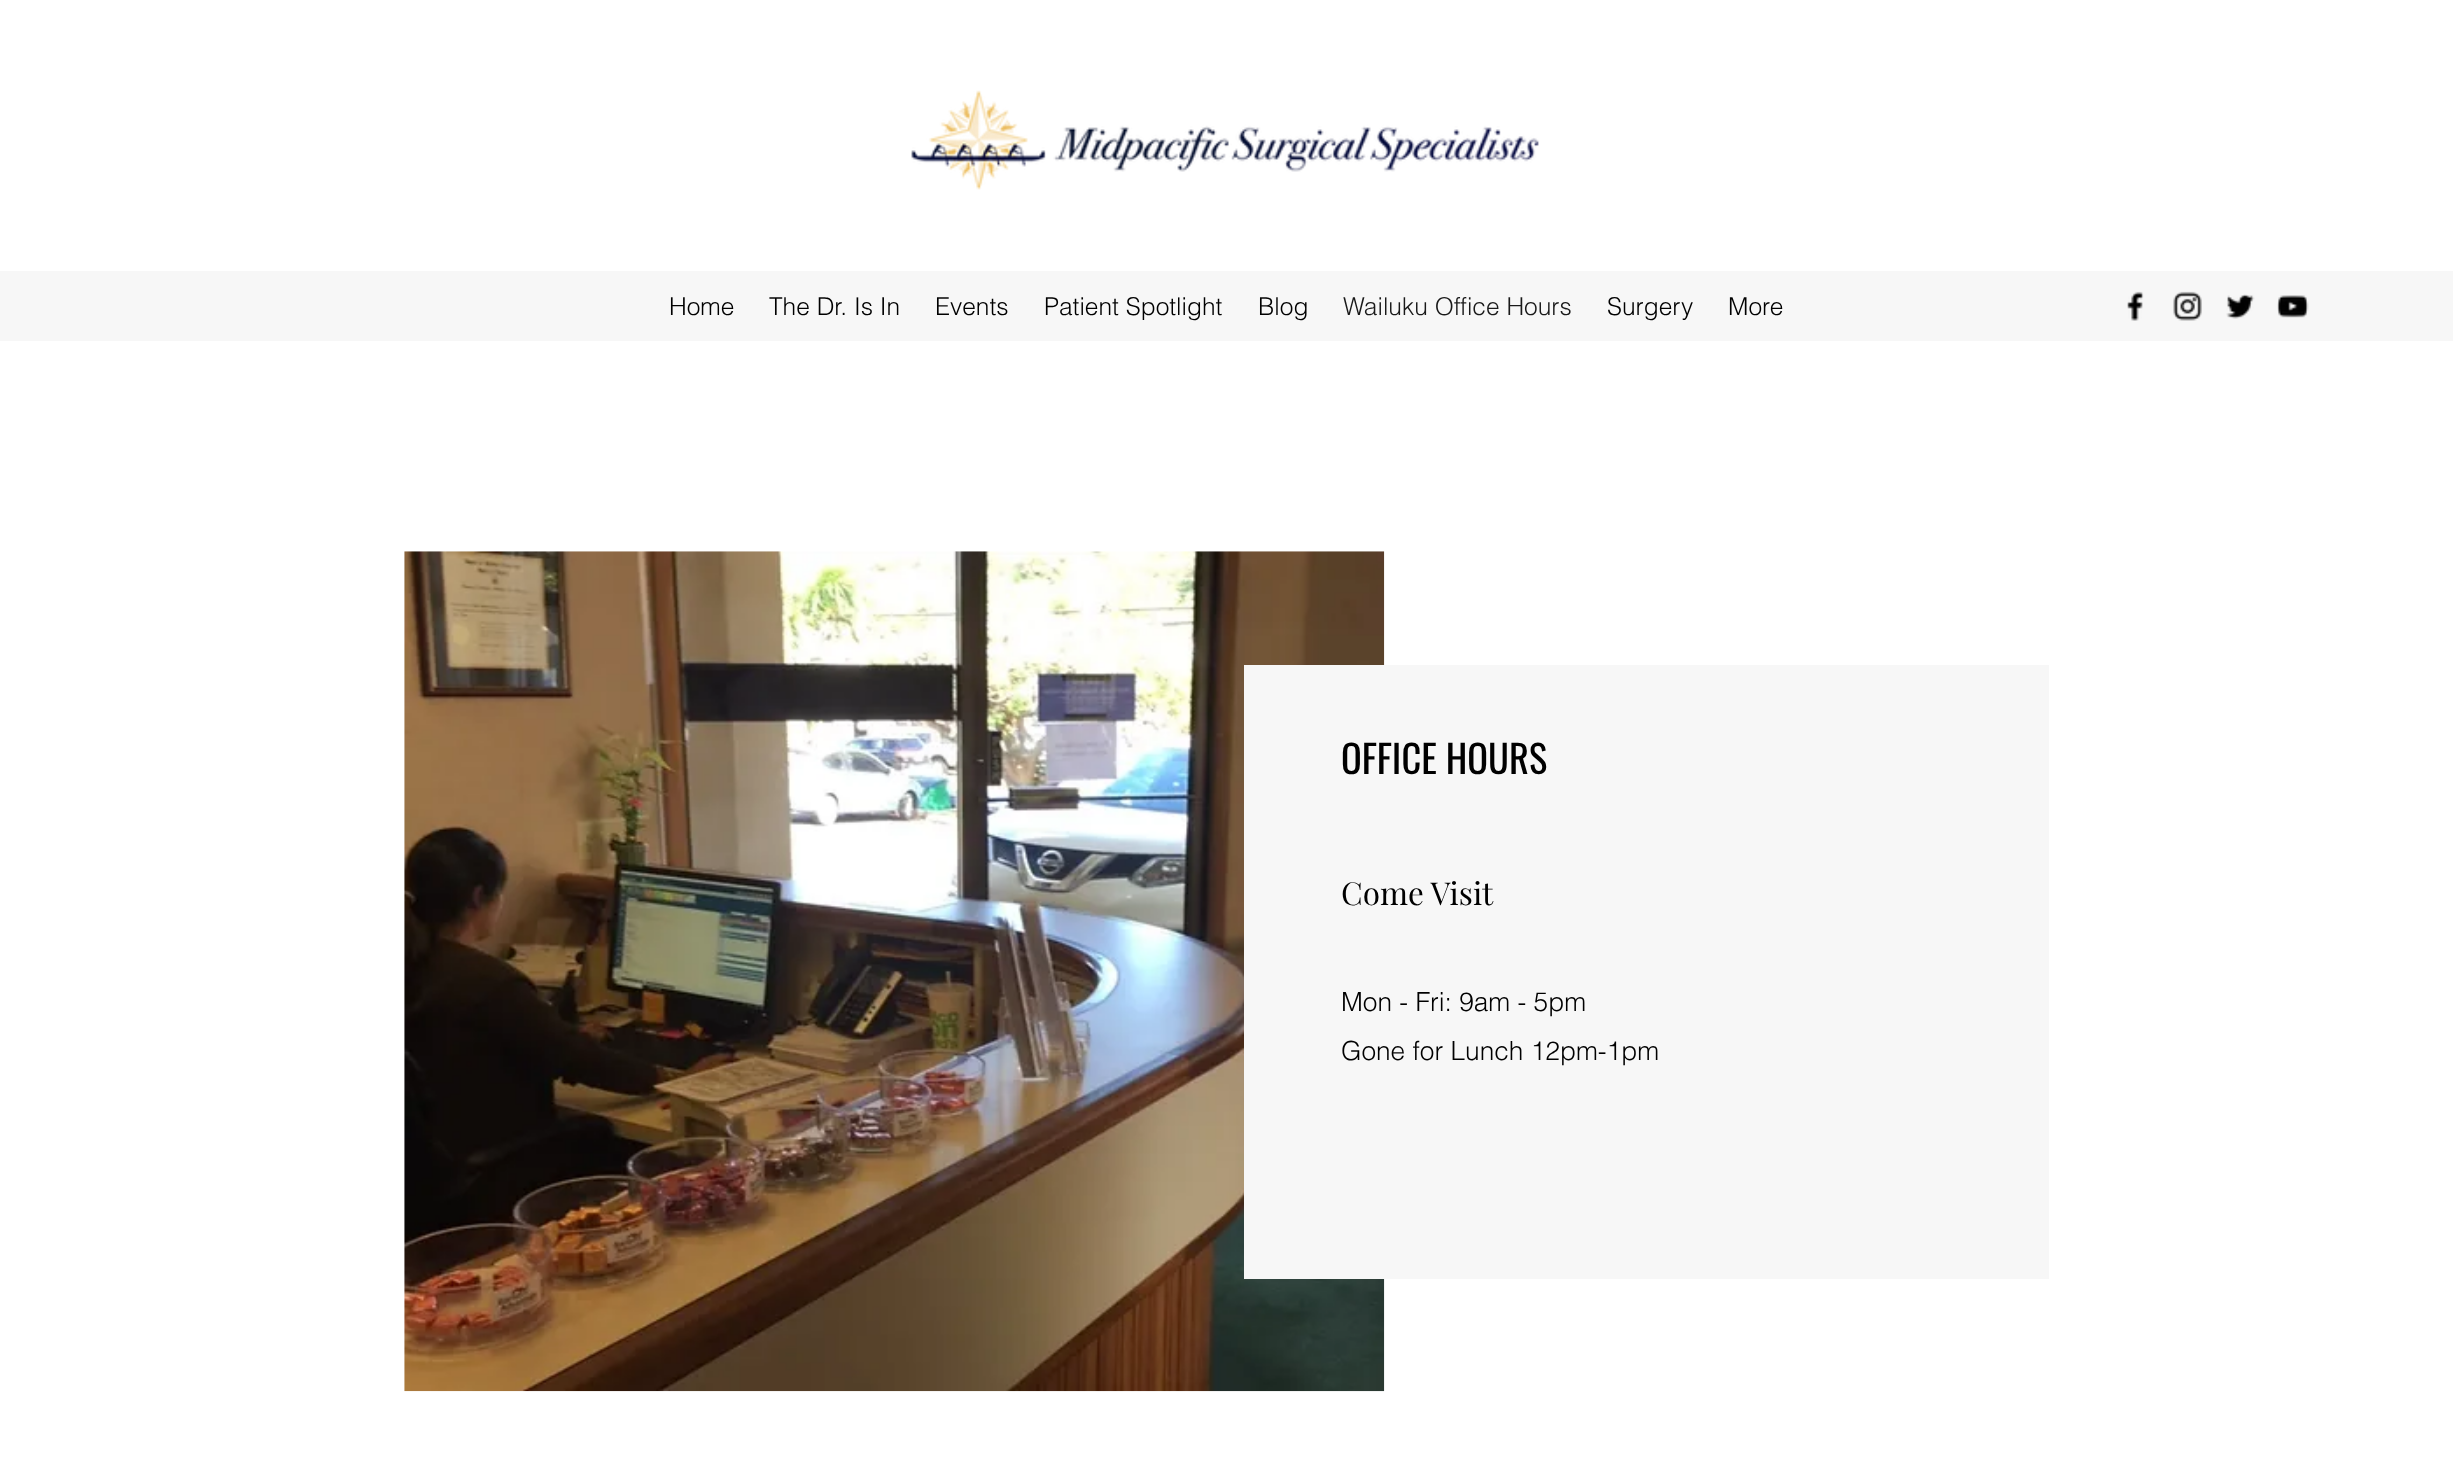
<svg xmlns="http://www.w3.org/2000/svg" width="2453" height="1469">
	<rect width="100%" height="100%" fill="#FFFFFF" />
	<image x="911" y="90" width="628" height="100" href="assets/img1.png" />
	<rect x="0" y="271" width="2453" height="70" fill="#F7F7F7" />
	<g font-family="helvetica" font-size="24.5" font-weight="300" fill="#000000">
		<text x="669" y="315">Home</text>
		<text x="769" y="315">The Dr. Is In</text>
		<text x="935" y="315">Events</text>
		<text x="1044" y="315">Patient Spotlight</text>
		<text x="1258" y="315">Blog</text>
	</g>
	<text x="1343" y="315" font-family="helvetica" font-size="24.5" font-weight="300" fill="#191919">Wailuku Office Hours</text>
	<g font-family="helvetica" font-size="24.5" font-weight="300" fill="#000000">
		<text x="1607" y="315">Surgery</text>
		<text x="1728" y="315">More</text>
	</g>
	<image x="2127" y="291" width="17" height="30" href="assets/img2.png" />
	<image x="2173" y="291" width="29" height="30" href="assets/img3.png" />
	<image x="2226" y="294" width="29" height="25" href="assets/img4.png" />
	<image x="2277" y="295" width="32" height="23" href="assets/img5.png" />
	<image x="404" y="551" width="981" height="841" href="assets/img6.png" />
	<rect x="1244" y="665" width="805" height="614" fill="#F7F7F7" />
	<text x="1341" y="774" font-family="Oswald" font-size="38.5" fill="#000000">OFFICE HOURS</text>
	<text x="1341" y="905" font-family="Playfair Display" font-size="31.5" fill="#000000">Come Visit</text>
	<g font-family="helvetica" font-size="26.25" font-weight="300" fill="#000000">
		<text x="1341" y="1011">Mon - Fri: 9am - 5pm</text>
		<text x="1341" y="1060">Gone for Lunch 12pm-1pm</text>
	</g>
</svg>
